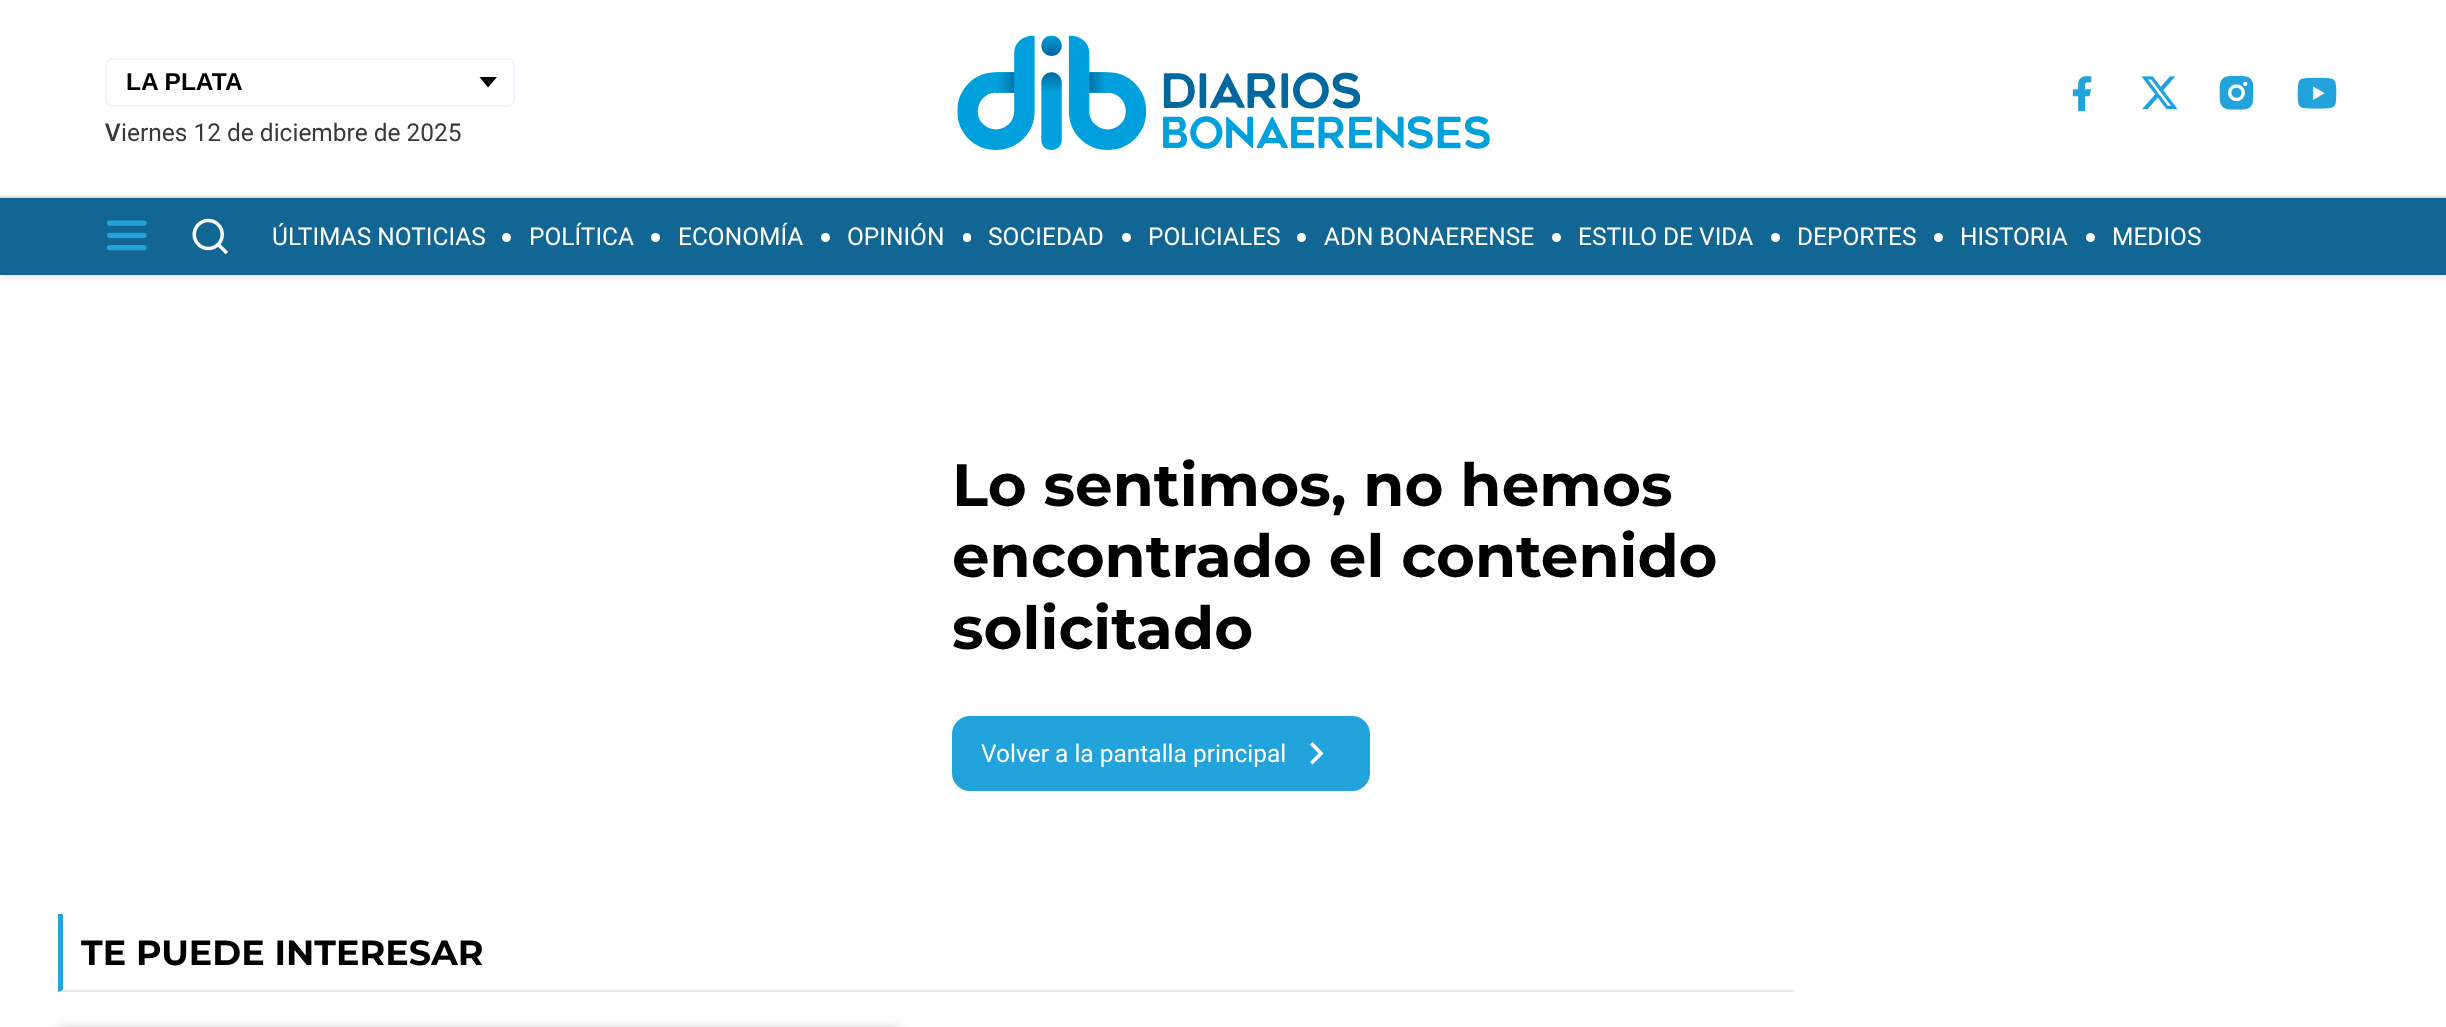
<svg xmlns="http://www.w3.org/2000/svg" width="2446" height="1027">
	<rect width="100%" height="100%" fill="#FFFFFF" />
	<rect x="0" y="0" width="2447" height="275" fill="#000000" fill-opacity="0.16" filter="blur(5px)" />
	<rect x="0" y="0" width="2446" height="196" fill="#FFFFFF" />
	<rect x="0" y="196" width="2446" height="2" fill="#E2E2E2" />
	<path d="M479.5 77H497L488 87.5Z" fill="#000000" />
	<rect x="106" y="59" width="408" height="47" rx="6" fill="none" stroke="#EDF4FF" stroke-width="2" />
	<text x="126" y="90" font-family="Liberation Sans" font-size="24.5" font-weight="700" fill="#000000">LA PLATA</text>
	<text x="105" y="141" font-family="Noto Sans" font-size="24.5" font-weight="600" fill="#393939">V</text>
	<text x="121" y="141" font-family="Roboto" font-size="24.5" fill="#393939">iernes 12 de diciembre de 2025</text>
	<image x="957" y="35" width="533" height="115" href="assets/img1.png" />
	<image x="2072" y="76" width="20" height="36" href="assets/img2.png" />
	<image x="2141" y="76" width="37" height="34" href="assets/img3.png" />
	<image x="2219" y="75" width="35" height="35" href="assets/img4.png" />
	<image x="2297" y="77" width="40" height="32" href="assets/img5.png" />
	<rect x="0" y="198" width="2446" height="77" fill="#116693" />
	<image x="106" y="220" width="41" height="31" href="assets/img6.png" />
	<image x="192" y="218" width="36" height="37" href="assets/img7.png" />
	<text x="272" y="245" font-family="Roboto" font-size="24.5" fill="#FFFFFF">ÚLTIMAS NOTICIAS</text>
	<circle cx="506.5" cy="237.5" r="4.5" fill="#FFFFFF" />
	<text x="529" y="245" font-family="Roboto" font-size="24.5" fill="#FFFFFF">POLÍTICA</text>
	<circle cx="655.5" cy="237.5" r="4.5" fill="#FFFFFF" />
	<text x="678" y="245" font-family="Roboto" font-size="24.5" fill="#FFFFFF">ECONOMÍA</text>
	<circle cx="825.5" cy="237.5" r="4.5" fill="#FFFFFF" />
	<text x="847" y="245" font-family="Roboto" font-size="24.5" fill="#FFFFFF">OPINIÓN</text>
	<rect x="963" y="233" width="8" height="9" rx="4" fill="#FFFFFF" />
	<text x="988" y="245" font-family="Roboto" font-size="24.5" fill="#FFFFFF">SOCIEDAD</text>
	<circle cx="1126.5" cy="237.5" r="4.5" fill="#FFFFFF" />
	<text x="1148" y="245" font-family="Roboto" font-size="24.5" fill="#FFFFFF">POLICIALES</text>
	<circle cx="1301.5" cy="237.5" r="4.5" fill="#FFFFFF" />
	<text x="1324" y="245" font-family="Roboto" font-size="24.5" fill="#FFFFFF">ADN BONAERENSE</text>
	<circle cx="1556.5" cy="237.5" r="4.5" fill="#FFFFFF" />
	<text x="1578" y="245" font-family="Roboto" font-size="24.5" fill="#FFFFFF">ESTILO DE VIDA</text>
	<circle cx="1775.5" cy="237.5" r="4.5" fill="#FFFFFF" />
	<text x="1797" y="245" font-family="Roboto" font-size="24.5" fill="#FFFFFF">DEPORTES</text>
	<circle cx="1938.5" cy="237.5" r="4.5" fill="#FFFFFF" />
	<text x="1960" y="245" font-family="Roboto" font-size="24.5" fill="#FFFFFF">HISTORIA</text>
	<circle cx="2090.5" cy="237.5" r="4.5" fill="#FFFFFF" />
	<text x="2112" y="245" font-family="Roboto" font-size="24.5" fill="#FFFFFF">MEDIOS</text>
	<g font-family="Montserrat" font-size="59.5" font-weight="700" fill="#000000">
		<text x="952" y="506">Lo sentimos, no hemos</text>
		<text x="952" y="577">encontrado el contenido</text>
		<text x="952" y="649">solicitado</text>
	</g>
	<rect x="953" y="717" width="416" height="73" rx="17" fill="#22A3DC" stroke="#22A3DC" stroke-width="2" />
	<text x="981" y="762" font-family="Roboto" font-size="24.5" fill="#FFFFFF">Volver a la pantalla principal</text>
	<path d="M1318.5 753.5L1310 744.5L1312.5 742L1323.5 753.5L1312.5 764.5L1310 762Z" fill="#FFFFFF" />
	<path d="M1794 992H58L63 990H1794Z" fill="#E8E8E8" />
	<path d="M58 992V914H63V990Z" fill="#22A3DC" />
	<text x="81" y="965" font-family="Montserrat" font-size="35" font-weight="700" fill="#000000">TE PUEDE INTERESAR</text>
	<rect x="58" y="1027" width="842" height="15" fill="#000000" fill-opacity="0.16" filter="blur(5px)" />
</svg>
